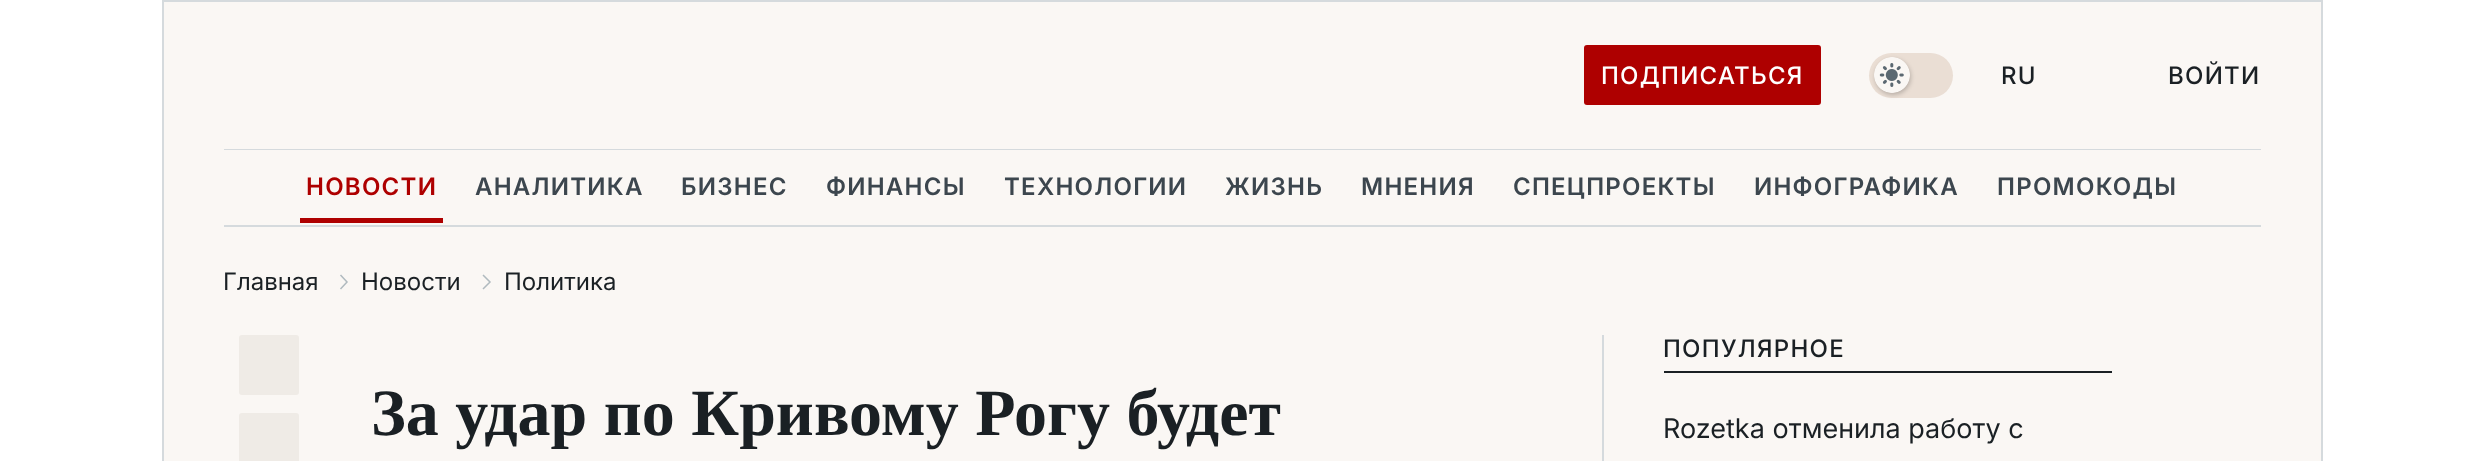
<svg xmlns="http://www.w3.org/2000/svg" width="2482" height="461">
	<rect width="100%" height="100%" fill="#FFFFFF" />
	<rect x="164" y="2" width="2157" height="459" fill="#FAF7F4" />
	<rect x="162" y="0" width="2160" height="2" fill="#D5DADD" />
	<rect x="2321" y="0" width="2" height="461" fill="#D5DADD" />
	<rect x="162" y="0" width="2" height="461" fill="#D5DADD" />
	<rect x="224" y="149" width="2037" height="1" fill="#D5DADD" />
	<rect x="1584" y="45" width="237" height="60" rx="3" fill="#AE0000" />
	<text x="1601" y="84" font-family="Inter" font-size="24" font-weight="500" letter-spacing="1.25" fill="#FFFFFF">ПОДПИСАТЬСЯ</text>
	<rect x="1869" y="53" width="84" height="45" rx="22.5" fill="#EADED4" />
	<rect x="1875" y="59" width="36" height="36" rx="18" fill="#000000" fill-opacity="0.2" filter="blur(2px)" />
	<image x="1874" y="57" width="36" height="36" href="assets/img1.png" />
	<g font-family="Inter" font-size="24" font-weight="500" letter-spacing="1.25" fill="#1A2024">
		<text x="2001" y="84">RU</text>
		<text x="2168" y="84">ВОЙТИ</text>
	</g>
	<rect x="224" y="225" width="2037" height="2" fill="#D5DADD" />
	<text x="306" y="195" font-family="Inter" font-size="24" font-weight="600" letter-spacing="1.25" fill="#AE0000">НОВОСТИ</text>
	<rect x="300" y="218" width="143" height="5" fill="#AE0000" />
	<g font-family="Inter" font-size="24" font-weight="600" letter-spacing="1.25" fill="#3C464E">
		<text x="475" y="195">АНАЛИТИКА</text>
		<text x="681" y="195">БИЗНЕС</text>
		<text x="826" y="195">ФИНАНСЫ</text>
		<text x="1004" y="195">ТЕХНОЛОГИИ</text>
		<text x="1225" y="195">ЖИЗНЬ</text>
		<text x="1361" y="195">МНЕНИЯ</text>
		<text x="1513" y="195">СПЕЦПРОЕКТЫ</text>
		<text x="1754" y="195">ИНФОГРАФИКА</text>
		<text x="1997" y="195">ПРОМОКОДЫ</text>
	</g>
	<text x="223" y="290" font-family="Inter" font-size="24" fill="#1A2024">Главная</text>
	<path d="M340.5 275L347 282L340.5 289" fill="none" stroke="#B0BABF" stroke-width="1.5" />
	<text x="361" y="290" font-family="Inter" font-size="24" fill="#1A2024">Новости</text>
	<path d="M483 275L490 282L483 289" fill="none" stroke="#B0BABF" stroke-width="1.5" />
	<text x="504" y="290" font-family="Inter" font-size="24" fill="#1A2024">Политика</text>
	<rect x="239" y="335" width="60" height="60" rx="3" fill="#EFEBE6" />
	<rect x="239" y="413" width="60" height="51" rx="3" fill="#EFEBE6" />
	<text x="371" y="435" font-family="Tinos" font-size="66" font-weight="700" fill="#1A2024">За удар по Кривому Рогу будет</text>
	<rect x="1602" y="335" width="2" height="126" fill="#D5DADD" />
	<rect x="1664" y="371" width="448" height="2" fill="#1A2024" />
	<text x="1663" y="357" font-family="Inter" font-size="24" font-weight="500" letter-spacing="1.25" fill="#1A2024">ПОПУЛЯРНОЕ</text>
	<text x="1663" y="438" font-family="Inter" font-size="27" fill="#1A2024">Rozetka отменила работу с</text>
</svg>
